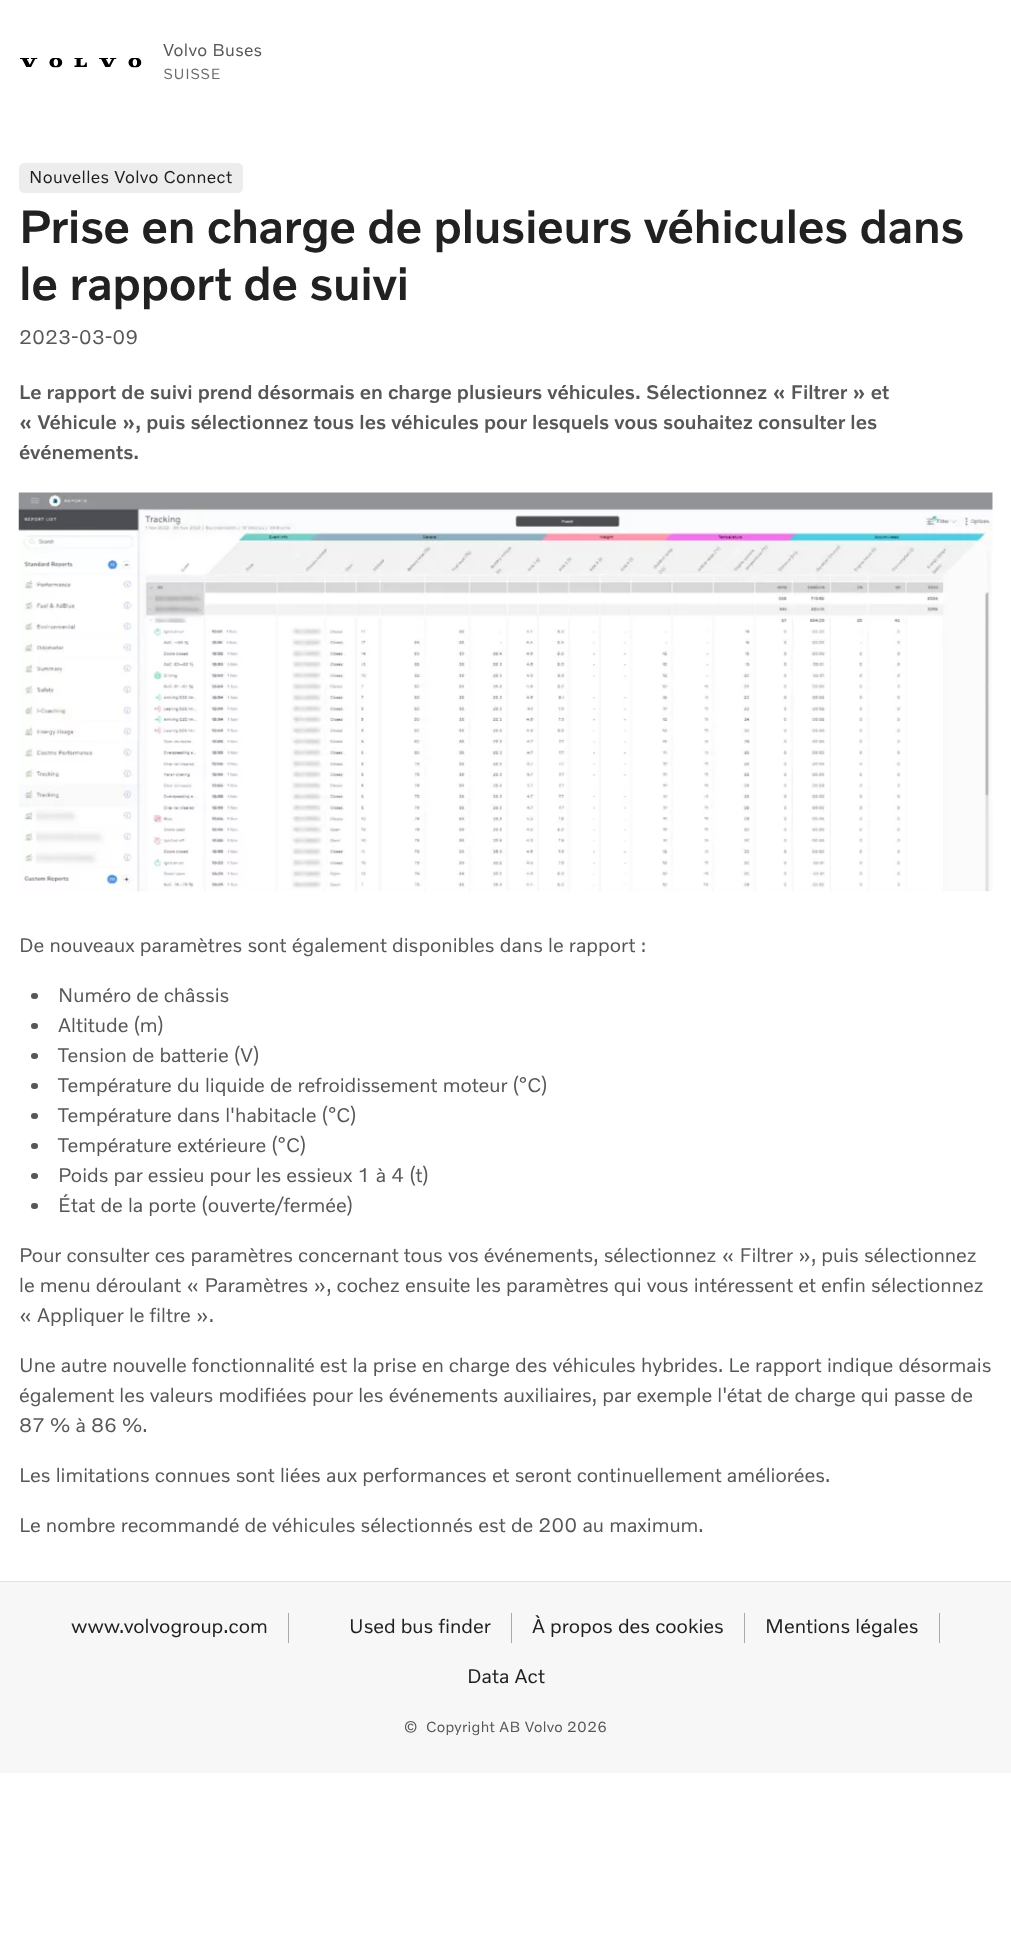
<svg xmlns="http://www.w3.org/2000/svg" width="1011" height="1952">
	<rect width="100%" height="100%" fill="#FFFFFF" />
	<image x="20" y="58" width="122" height="10" href="assets/img1.png" />
	<text x="163" y="56" font-family="'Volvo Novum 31'" font-size="17.5" letter-spacing="0.35" fill="#575757">Volvo Buses</text>
	<text x="163" y="79" font-family="'Volvo Novum 31'" font-size="15" letter-spacing="0.3" fill="#6B6B6B">SUISSE</text>
	<rect x="19" y="163" width="224" height="30" rx="5" fill="#EDEDED" />
	<text x="29" y="183" font-family="'Volvo Novum 31'" font-size="17.5" letter-spacing="0.35" fill="#212121">Nouvelles Volvo Connect</text>
	<g font-family="'Volvo Novum 31'" font-size="47.5" font-weight="700" letter-spacing="-0.45" fill="#212121">
		<text x="19" y="243">Prise en charge de plusieurs véhicules dans</text>
		<text x="19" y="300">le rapport de suivi</text>
	</g>
	<text x="19" y="344" font-family="'Volvo Novum 31'" font-size="20" fill="#575757">2023-03-09</text>
	<g font-family="'Volvo Novum 31'" font-size="20" font-weight="700" fill="#575757">
		<text x="19" y="399">Le rapport de suivi prend désormais en charge plusieurs véhicules. Sélectionnez « Filtrer » et</text>
		<text x="19" y="429">« Véhicule », puis sélectionnez tous les véhicules pour lesquels vous souhaitez consulter les</text>
		<text x="19" y="459">événements.</text>
	</g>
	<image x="18" y="492" width="975" height="400" href="assets/img2.png" />
	<text x="19" y="952" font-family="'Volvo Novum 31'" font-size="20" fill="#575757">De nouveaux paramètres sont également disponibles dans le rapport :</text>
	<rect x="31" y="993" width="7" height="6" rx="3" fill="#575757" />
	<text x="58" y="1002" font-family="'Volvo Novum 31'" font-size="20" fill="#575757">Numéro de châssis</text>
	<rect x="31" y="1023" width="7" height="6" rx="3" fill="#575757" />
	<text x="58" y="1032" font-family="'Volvo Novum 31'" font-size="20" fill="#575757">Altitude (m)</text>
	<rect x="31" y="1053" width="7" height="6" rx="3" fill="#575757" />
	<text x="58" y="1062" font-family="'Volvo Novum 31'" font-size="20" fill="#575757">Tension de batterie (V)</text>
	<rect x="31" y="1083" width="7" height="6" rx="3" fill="#575757" />
	<text x="58" y="1092" font-family="'Volvo Novum 31'" font-size="20" fill="#575757">Température du liquide de refroidissement moteur (°C)</text>
	<rect x="31" y="1113" width="7" height="6" rx="3" fill="#575757" />
	<text x="58" y="1122" font-family="'Volvo Novum 31'" font-size="20" fill="#575757">Température dans l'habitacle (°C)</text>
	<rect x="31" y="1143" width="7" height="6" rx="3" fill="#575757" />
	<text x="58" y="1152" font-family="'Volvo Novum 31'" font-size="20" fill="#575757">Température extérieure (°C)</text>
	<rect x="31" y="1173" width="7" height="6" rx="3" fill="#575757" />
	<text x="58" y="1182" font-family="'Volvo Novum 31'" font-size="20" fill="#575757">Poids par essieu pour les essieux 1 à 4 (t)</text>
	<rect x="31" y="1203" width="7" height="6" rx="3" fill="#575757" />
	<g font-family="'Volvo Novum 31'" font-size="20" fill="#575757">
		<text x="58" y="1212">État de la porte (ouverte/fermée)</text>
		<text x="19" y="1262">Pour consulter ces paramètres concernant tous vos événements, sélectionnez « Filtrer », puis sélectionnez</text>
		<text x="19" y="1292">le menu déroulant « Paramètres », cochez ensuite les paramètres qui vous intéressent et enfin sélectionnez</text>
		<text x="19" y="1322">« Appliquer le filtre ».</text>
		<text x="19" y="1372">Une autre nouvelle fonctionnalité est la prise en charge des véhicules hybrides. Le rapport indique désormais</text>
		<text x="19" y="1402">également les valeurs modifiées pour les événements auxiliaires, par exemple l'état de charge qui passe de</text>
		<text x="19" y="1432">87 % à 86 %.</text>
		<text x="19" y="1482">Les limitations connues sont liées aux performances et seront continuellement améliorées.</text>
		<text x="19" y="1532">Le nombre recommandé de véhicules sélectionnés est de 200 au maximum.</text>
	</g>
	<rect x="0" y="1582" width="1011" height="191" fill="#F7F7F7" />
	<rect x="0" y="1581" width="1011" height="1" fill="#E1E1E1" />
	<text x="71" y="1633" font-family="'Volvo Novum 31'" font-size="20" fill="#212121">www.volvogroup.com</text>
	<rect x="288" y="1613" width="1" height="30" fill="#A9A9A9" />
	<text x="349" y="1633" font-family="'Volvo Novum 31'" font-size="20" fill="#212121">Used bus finder</text>
	<rect x="511" y="1613" width="1" height="30" fill="#A9A9A9" />
	<text x="532" y="1633" font-family="'Volvo Novum 31'" font-size="20" fill="#212121">À propos des cookies</text>
	<rect x="744" y="1613" width="1" height="30" fill="#A9A9A9" />
	<text x="765" y="1633" font-family="'Volvo Novum 31'" font-size="20" fill="#212121">Mentions légales</text>
	<rect x="939" y="1613" width="1" height="30" fill="#A9A9A9" />
	<text x="467" y="1683" font-family="'Volvo Novum 31'" font-size="20" fill="#212121">Data Act</text>
	<g font-family="'Volvo Novum 31'" font-size="15" letter-spacing="0.3" fill="#575757">
		<text x="404" y="1732">©</text>
		<text x="426" y="1732">Copyright AB Volvo 2026</text>
	</g>
</svg>
